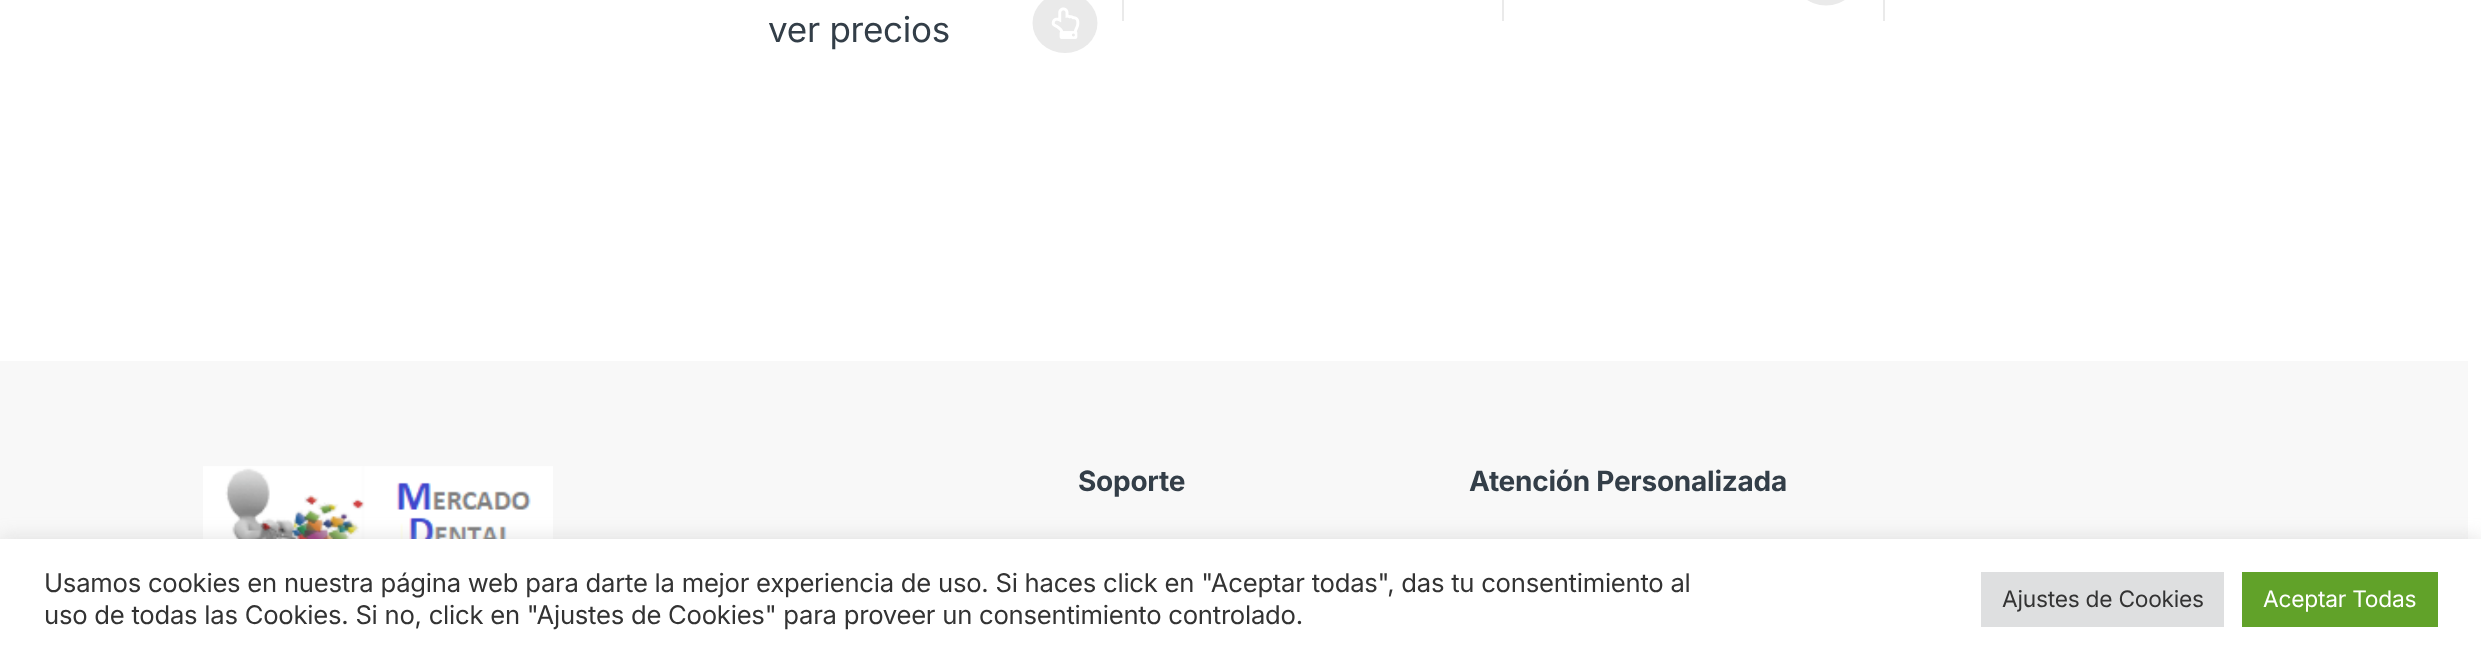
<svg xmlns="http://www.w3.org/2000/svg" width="2481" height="659">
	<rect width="100%" height="100%" fill="#FFFFFF" />
	<rect x="1502" y="0" width="2" height="21" fill="#EAEAEA" />
	<ellipse cx="1826" cy="-24.5" rx="32.5" ry="30" fill="#EAEAEA" />
	<rect x="1883" y="0" width="2" height="21" fill="#EAEAEA" />
	<rect x="1122" y="0" width="2" height="21" fill="#EAEAEA" />
	<text x="768" y="42" font-family="Inter" font-size="35" letter-spacing="-0.25" fill="#333E48">ver precios</text>
	<ellipse cx="1065" cy="23" rx="32.5" ry="30" fill="#EAEAEA" />
	<image x="1051" y="7" width="29" height="32" href="assets/img1.png" />
	<rect x="0" y="361" width="2468" height="178" fill="#F8F8F8" />
	<image x="203" y="466" width="350" height="73" href="assets/img2.png" />
	<g font-family="Inter" font-size="28" font-weight="700" letter-spacing="-0.25" fill="#333E48">
		<text x="1078" y="491">Soporte</text>
		<text x="1469" y="491">Atención Personalizada</text>
	</g>
	<rect x="0" y="537" width="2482" height="121" fill="#ACABAB" fill-opacity="0.3" filter="blur(9px)" />
	<rect x="0" y="539" width="2481" height="120" fill="#FFFFFF" />
	<g font-family="Inter" font-size="25.67" letter-spacing="-0.25" fill="#333333">
		<text x="44" y="592">Usamos cookies en nuestra página web para darte la mejor experiencia de uso. Si haces click en "Aceptar todas", das tu consentimiento al</text>
		<text x="44" y="624">uso de todas las Cookies. Si no, click en "Ajustes de Cookies" para proveer un consentimiento controlado.</text>
	</g>
	<rect x="1981" y="572" width="243" height="55" fill="#DEDFE0" />
	<text x="2002" y="607" font-family="Inter" font-size="22.75" letter-spacing="-0.25" fill="#333333">Ajustes de Cookies</text>
	<rect x="2242" y="572" width="196" height="55" fill="#61A229" />
	<text x="2263" y="607" font-family="Inter" font-size="22.75" letter-spacing="-0.25" fill="#FFFFFF">Aceptar Todas</text>
</svg>
